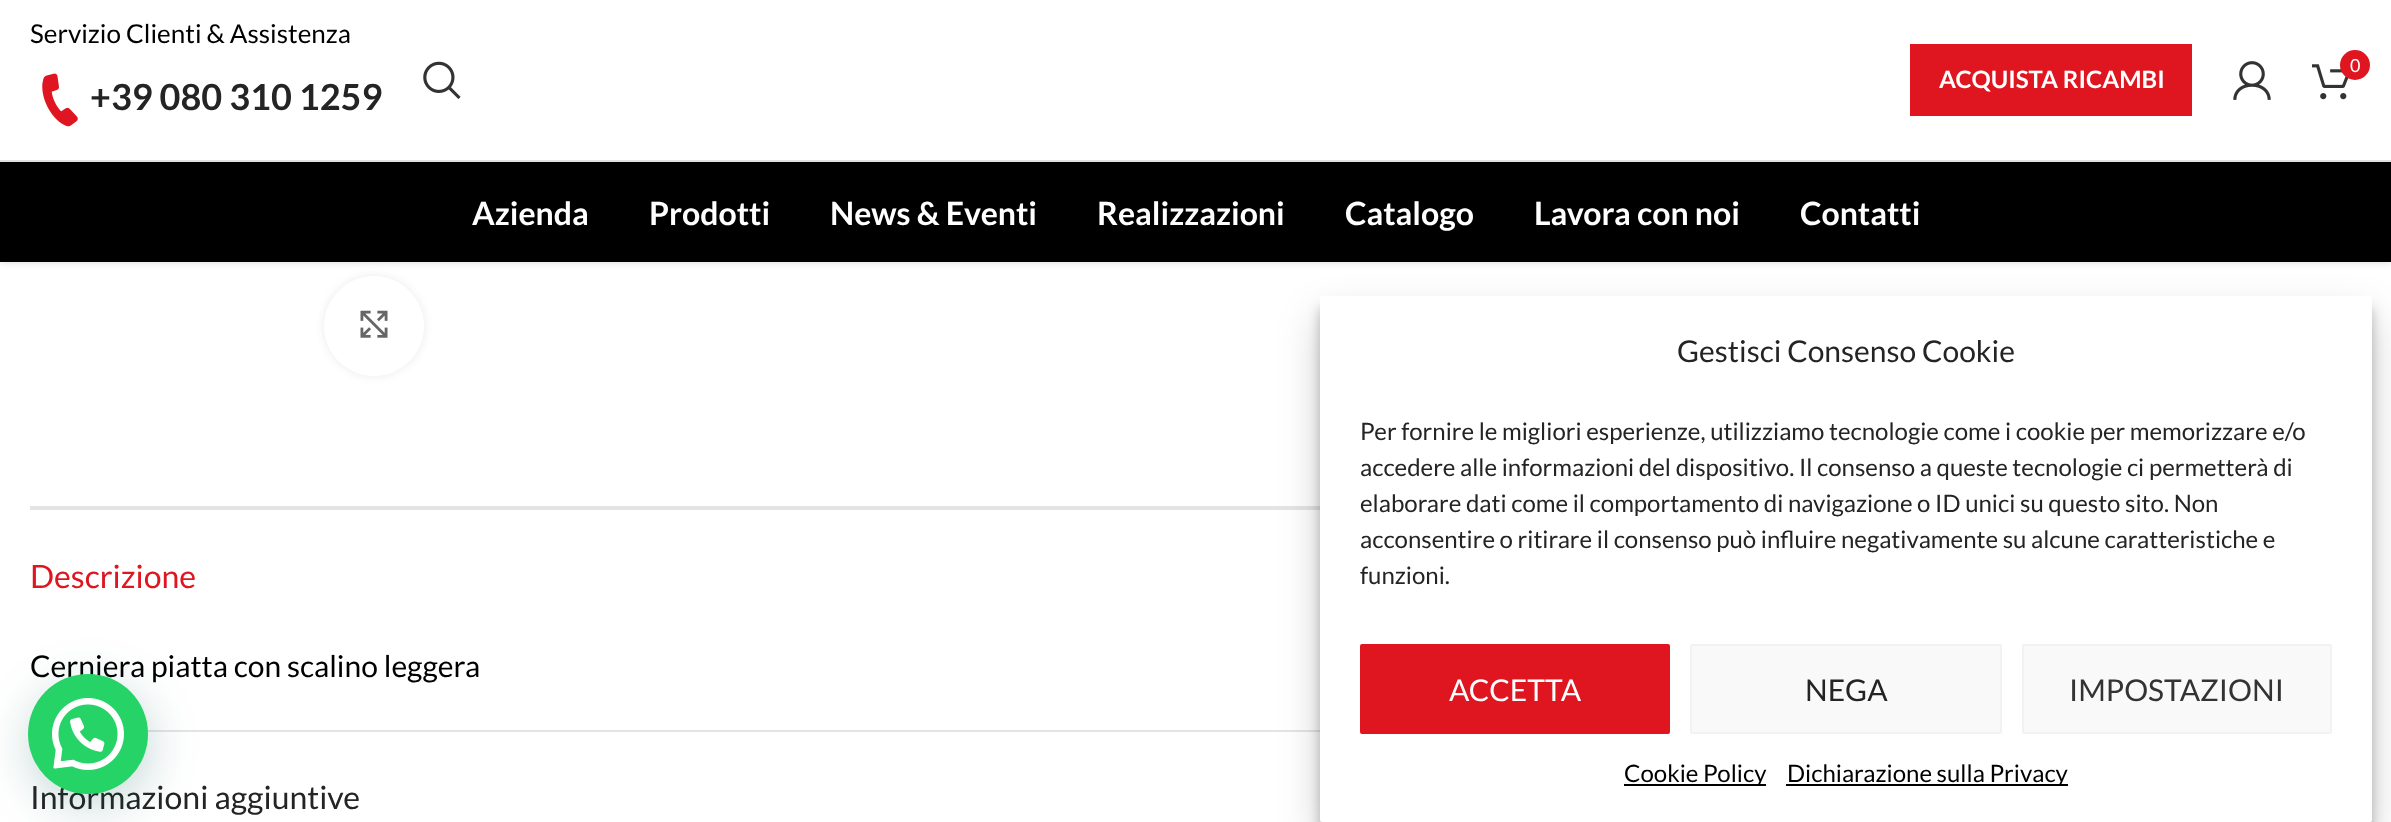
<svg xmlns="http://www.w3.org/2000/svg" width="2391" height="822">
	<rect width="100%" height="100%" fill="#FFFFFF" />
	<rect x="0" y="2" width="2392" height="262" fill="#000000" fill-opacity="0.1" filter="blur(3px)" />
	<rect x="0" y="0" width="2391" height="160" fill="#FFFFFF" />
	<rect x="0" y="160" width="2391" height="2" fill="#E1E1E1" />
	<text x="30" y="43" font-family="Lato" font-size="26" fill="#000000">Servizio Clienti &amp; Assistenza</text>
	<image x="42" y="73" width="36" height="54" href="assets/img1.png" />
	<text x="90" y="110" font-family="Lato" font-size="36" font-weight="700" fill="#242424">+39 080 310 1259</text>
	<image x="423" y="61" width="38" height="38" href="assets/img2.png" />
	<rect x="1910" y="44" width="282" height="72" fill="#DF1520" />
	<text x="1939" y="88" font-family="Lato" font-size="24" font-weight="700" fill="#FFFFFF">ACQUISTA RICAMBI</text>
	<image x="2233" y="61" width="38" height="39" href="assets/img3.png" />
	<image x="2312" y="64" width="37" height="36" href="assets/img4.png" />
	<circle cx="2355" cy="65" r="15" fill="#DF1520" />
	<text x="2350" y="72" font-family="Lato" font-size="18" fill="#FFFFFF">0</text>
	<rect x="324" y="276" width="100" height="100" rx="50" fill="#000000" fill-opacity="0.08" filter="blur(5px)" />
	<rect x="0" y="162" width="2391" height="100" fill="#000000" />
	<g font-family="Lato" font-size="32" font-weight="700" fill="#FFFFFF">
		<text x="472" y="225">Azienda</text>
		<text x="649" y="225">Prodotti</text>
		<text x="830" y="225">News &amp; Eventi</text>
		<text x="1097" y="225">Realizzazioni</text>
		<text x="1345" y="225">Catalogo</text>
		<text x="1534" y="225">Lavora con noi</text>
		<text x="1800" y="225">Contatti</text>
	</g>
	<circle cx="374" cy="326" r="50" fill="#FFFFFF" />
	<image x="360" y="310" width="28" height="28" href="assets/img5.png" />
	<rect x="30" y="506" width="1290" height="4" fill="#E4E4E4" />
	<rect x="147" y="730" width="1173" height="2" fill="#E4E4E4" />
	<text x="30" y="588" font-family="Lato" font-size="32" fill="#DF1520">Descrizione</text>
	<text x="30" y="677" font-family="Lato" font-size="30" fill="#000000">Cerniera piatta con scalino leggera</text>
	<text x="30" y="809" font-family="Lato" font-size="32" fill="#242424">Informazioni aggiuntive</text>
	<rect x="30" y="686" width="120" height="120" rx="60" fill="#075E54" fill-opacity="0.24" filter="blur(24px)" />
	<circle cx="88" cy="734" r="60" fill="#25D366" />
	<image x="52" y="698" width="72" height="72" href="assets/img6.png" />
	<rect x="1320" y="308" width="1052" height="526" rx="2" fill="#000000" fill-opacity="0.23" filter="blur(6px)" />
	<rect x="1320" y="316" width="1052" height="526" rx="2" fill="#000000" fill-opacity="0.19" filter="blur(20px)" />
	<rect x="1320" y="296" width="1052" height="526" rx="2" fill="#FFFFFF" />
	<text x="1677" y="362" font-family="Lato" font-size="30" fill="#242424">Gestisci Consenso Cookie</text>
	<g font-family="Lato" font-size="24" fill="#242424">
		<text x="1360" y="440">Per fornire le migliori esperienze, utilizziamo tecnologie come i cookie per memorizzare e/o</text>
		<text x="1360" y="476">accedere alle informazioni del dispositivo. Il consenso a queste tecnologie ci permetterà di</text>
		<text x="1360" y="512">elaborare dati come il comportamento di navigazione o ID unici su questo sito. Non</text>
		<text x="1360" y="548">acconsentire o ritirare il consenso può influire negativamente su alcune caratteristiche e</text>
		<text x="1360" y="584">funzioni.</text>
	</g>
	<rect x="1361" y="645" width="308" height="88" rx="1" fill="#DF1520" stroke="#DF1520" stroke-width="2" />
	<text x="1449" y="701" font-family="Lato" font-size="30" fill="#FFFFFF">ACCETTA</text>
	<rect x="1691" y="645" width="310" height="88" rx="1" fill="#F9F9F9" stroke="#F2F2F2" stroke-width="2" />
	<text x="1805" y="701" font-family="Lato" font-size="30" fill="#242424">NEGA</text>
	<rect x="2023" y="645" width="308" height="88" rx="1" fill="#F9F9F9" stroke="#F2F2F2" stroke-width="2" />
	<text x="2069" y="701" font-family="Lato" font-size="30" fill="#333333">IMPOSTAZIONI</text>
	<rect x="1624" y="784" width="142" height="2" fill="#000000" />
	<text x="1624" y="782" font-family="Lato" font-size="24" fill="#000000">Cookie Policy</text>
	<rect x="1786" y="784" width="282" height="2" fill="#000000" />
	<text x="1787" y="782" font-family="Lato" font-size="24" fill="#000000">Dichiarazione sulla Privacy</text>
</svg>
